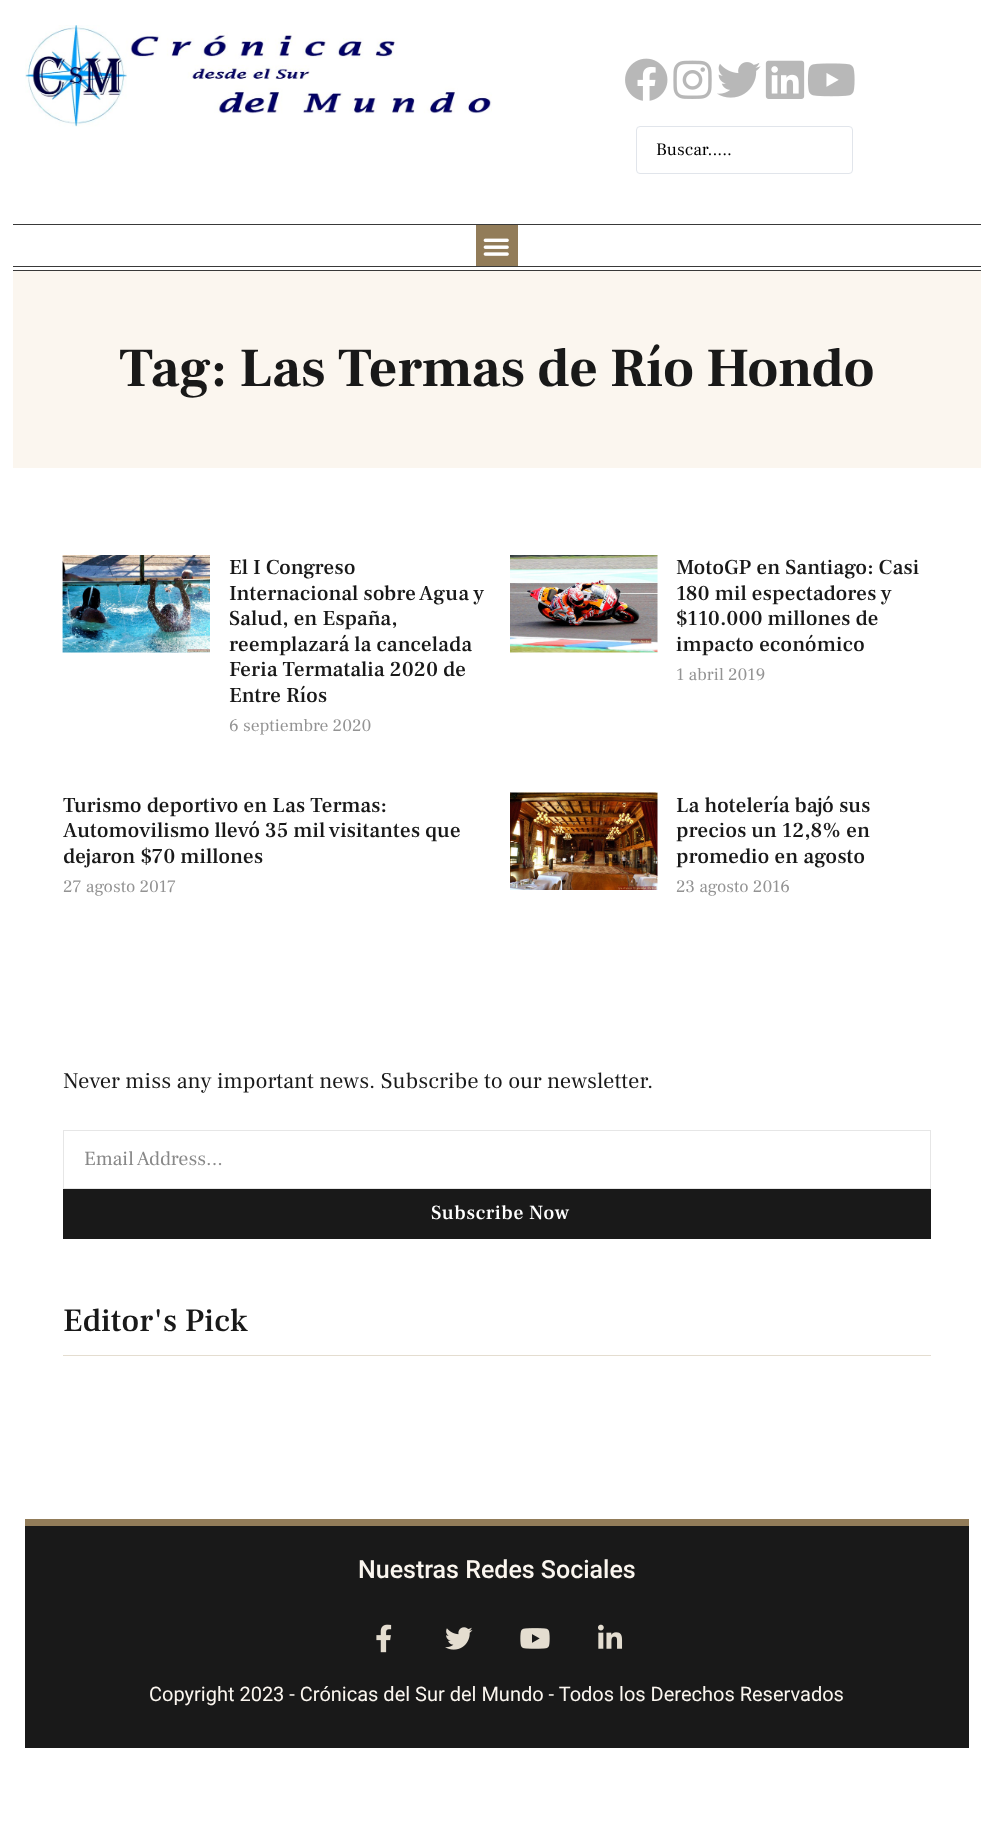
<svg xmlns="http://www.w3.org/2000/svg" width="993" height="1840">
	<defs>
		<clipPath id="clip1"><rect x="63" y="793" width="422" height="123" /></clipPath>
	</defs>
	<rect width="100%" height="100%" fill="#FFFFFF" />
	<image x="25" y="25" width="467" height="102" href="assets/img1.png" />
	<image x="625" y="58" width="43" height="43" href="assets/img2.png" />
	<image x="673" y="60" width="39" height="39" href="assets/img3.png" />
	<image x="717" y="62" width="44" height="36" href="assets/img4.png" />
	<image x="765" y="60" width="40" height="39" href="assets/img5.png" />
	<image x="807" y="63" width="48" height="34" href="assets/img6.png" />
	<rect x="636.5" y="126.5" width="216" height="47" rx="3.5" fill="none" stroke="#E1E5EB" />
	<text x="656" y="155" font-family="Frank Ruhl Libre" font-size="17.5" fill="#000000">Buscar.....</text>
	<rect x="13" y="224" width="968" height="1" fill="#393939" />
	<rect x="13" y="266" width="968" height="1" fill="#393939" />
	<rect x="13" y="270" width="968" height="1" fill="#393939" />
	<rect x="476" y="225" width="42" height="41" fill="#927C59" />
	<image x="483" y="238" width="26" height="18" href="assets/img7.png" />
	<rect x="13" y="271" width="968" height="197" fill="#FBF6EF" />
	<text x="119" y="386" font-family="Frank Ruhl Libre" font-size="55" font-weight="700" fill="#191919">Tag: Las Termas de Río Hondo</text>
	<image x="62" y="555" width="148" height="98" href="assets/img8.png" />
	<g font-family="Frank Ruhl Libre" font-size="21.25" font-weight="500" fill="#191919">
		<text x="229" y="574">El I Congreso</text>
		<text x="229" y="600">Internacional sobre Agua y</text>
		<text x="229" y="625">Salud, en España,</text>
		<text x="229" y="651">reemplazará la cancelada</text>
		<text x="229" y="676">Feria Termatalia 2020 de</text>
		<text x="229" y="702">Entre Ríos</text>
	</g>
	<text x="229" y="731" font-family="Frank Ruhl Libre" font-size="17.5" fill="#939393">6 septiembre 2020</text>
	<image x="510" y="555" width="148" height="98" href="assets/img9.png" />
	<g font-family="Frank Ruhl Libre" font-size="21.25" font-weight="500" fill="#191919">
		<text x="676" y="574">MotoGP en Santiago: Casi</text>
		<text x="676" y="600">180 mil espectadores y</text>
		<text x="676" y="625">$110.000 millones de</text>
		<text x="676" y="651">impacto económico</text>
	</g>
	<text x="676" y="680" font-family="Frank Ruhl Libre" font-size="17.5" fill="#939393">1 abril 2019</text>
	<g clip-path="url(#clip1)">
		<text x="63" y="812" font-family="Frank Ruhl Libre" font-size="21.25" font-weight="500" fill="#191919">Turismo deportivo en Las Termas:</text>
	</g>
	<g font-family="Frank Ruhl Libre" font-size="21.25" font-weight="500" fill="#191919">
		<text x="63" y="837">Automovilismo llevó 35 mil visitantes que</text>
		<text x="63" y="863">dejaron $70 millones</text>
	</g>
	<text x="63" y="892" font-family="Frank Ruhl Libre" font-size="17.5" fill="#939393">27 agosto 2017</text>
	<image x="510" y="792" width="148" height="98" href="assets/img10.png" />
	<g font-family="Frank Ruhl Libre" font-size="21.25" font-weight="500" fill="#191919">
		<text x="676" y="812">La hotelería bajó sus</text>
		<text x="676" y="837">precios un 12,8% en</text>
		<text x="676" y="863">promedio en agosto</text>
	</g>
	<text x="676" y="892" font-family="Frank Ruhl Libre" font-size="17.5" fill="#939393">23 agosto 2016</text>
	<text x="63" y="1088" font-family="Frank Ruhl Libre" font-size="22.5" fill="#191919">Never miss any important news. Subscribe to our newsletter.</text>
	<rect x="63.5" y="1130.5" width="867" height="58" fill="none" stroke="#E6E6E6" />
	<text x="84" y="1165" font-family="Frank Ruhl Libre" font-size="20" fill="#888888">Email Address...</text>
	<rect x="63" y="1189" width="868" height="50" fill="#191919" />
	<text x="431" y="1219" font-family="Frank Ruhl Libre" font-size="20" font-weight="500" letter-spacing="0.4" fill="#FFFFFF">Subscribe Now</text>
	<text x="63" y="1331" font-family="Frank Ruhl Libre" font-size="32.5" font-weight="500" fill="#191919">Editor's Pick</text>
	<rect x="63" y="1355" width="868" height="1" fill="#E4DDD0" />
	<rect x="25" y="1526" width="944" height="222" fill="#191919" />
	<rect x="25" y="1519" width="944" height="7" fill="#927C59" />
	<text x="358" y="1578" font-family="Roboto" font-size="25" font-weight="500" fill="#FBF6EF">Nuestras Redes Sociales</text>
	<image x="376" y="1624" width="16" height="29" href="assets/img11.png" />
	<image x="445" y="1627" width="28" height="23" href="assets/img12.png" />
	<image x="520" y="1628" width="30" height="21" href="assets/img13.png" />
	<image x="598" y="1624" width="25" height="25" href="assets/img14.png" />
	<text x="149" y="1701" font-family="Roboto" font-size="20" fill="#FBF6EF">Copyright 2023 - Crónicas del Sur del Mundo - Todos los Derechos Reservados</text>
</svg>
